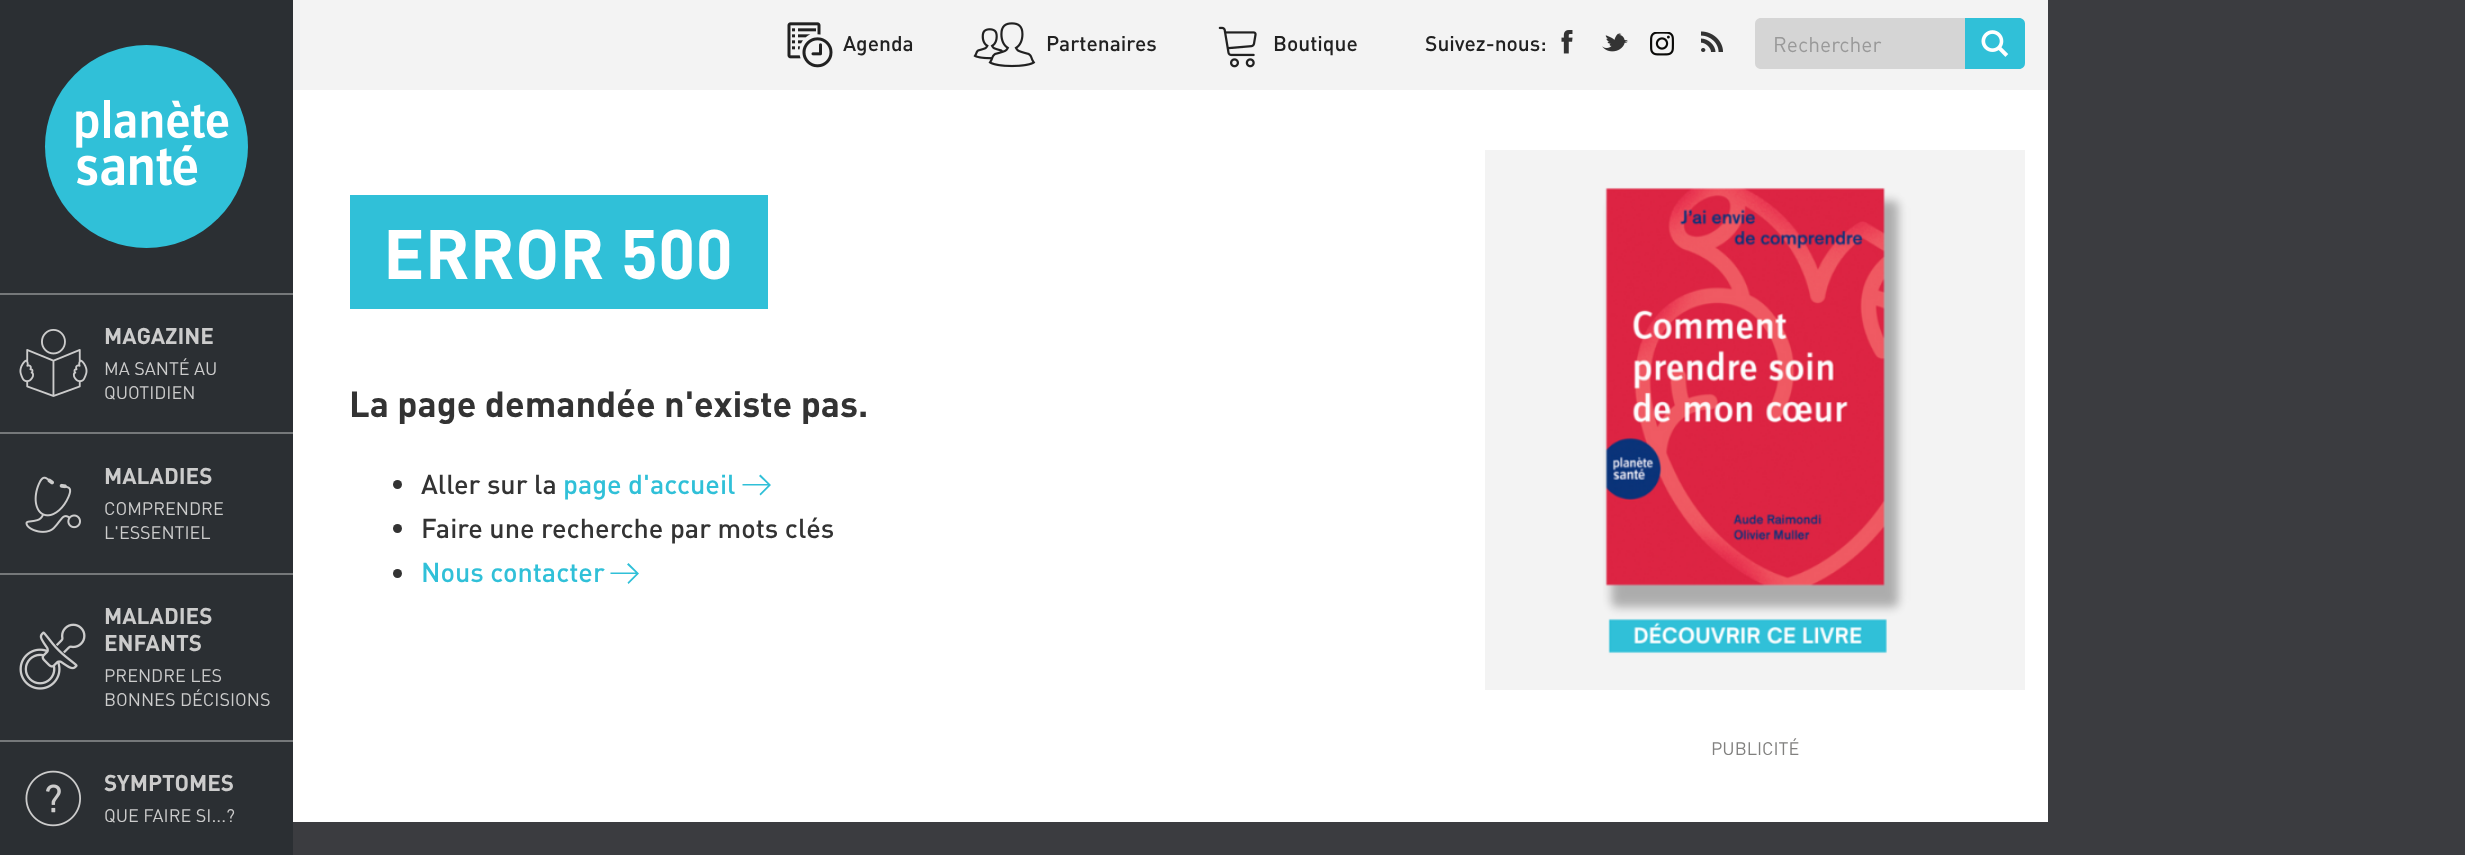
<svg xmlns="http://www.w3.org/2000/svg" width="2465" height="855">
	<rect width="100%" height="100%" fill="#3B3C40" />
	<rect x="0" y="0" width="293" height="855" fill="#2B2F33" />
	<circle cx="146.5" cy="146.5" r="101.5" fill="#30C0D8" />
	<image x="76" y="100" width="153" height="86" href="assets/img1.png" />
	<rect x="0" y="293" width="293" height="2" fill="#75787A" />
	<rect x="0" y="432" width="293" height="2" fill="#75787A" />
	<image x="19" y="329" width="69" height="68" href="assets/img2.png" />
	<text x="104" y="344" font-family="DIN" font-size="22.5" font-weight="700" fill="#CCCCCC">MAGAZINE</text>
	<g font-family="DIN" font-size="18" fill="#CCCCCC">
		<text x="104" y="375">MA SANTÉ AU</text>
		<text x="104" y="399">QUOTIDIEN</text>
	</g>
	<rect x="0" y="573" width="293" height="2" fill="#75787A" />
	<image x="25" y="476" width="56" height="57" href="assets/img3.png" />
	<text x="104" y="484" font-family="DIN" font-size="22.5" font-weight="700" fill="#CCCCCC">MALADIES</text>
	<g font-family="DIN" font-size="18" fill="#CCCCCC">
		<text x="104" y="515">COMPRENDRE</text>
		<text x="104" y="539">L'ESSENTIEL</text>
	</g>
	<rect x="0" y="740" width="293" height="2" fill="#75787A" />
	<text x="104" y="624" font-family="DIN" font-size="22.5" font-weight="700" fill="#CCCCCC">MALADIES</text>
	<image x="19" y="623" width="67" height="67" href="assets/img4.png" />
	<text x="104" y="651" font-family="DIN" font-size="22.5" font-weight="700" fill="#CCCCCC">ENFANTS</text>
	<g font-family="DIN" font-size="18" fill="#CCCCCC">
		<text x="104" y="682">PRENDRE LES</text>
		<text x="104" y="706">BONNES DÉCISIONS</text>
	</g>
	<image x="25" y="770" width="56" height="57" href="assets/img5.png" />
	<text x="104" y="791" font-family="DIN" font-size="22.5" font-weight="700" fill="#CCCCCC">SYMPTOMES</text>
	<text x="104" y="822" font-family="DIN" font-size="18" fill="#CCCCCC">QUE FAIRE SI...?</text>
	<rect x="293" y="90" width="1755" height="732" fill="#FFFFFF" />
	<rect x="293" y="0" width="1755" height="90" fill="#F3F3F3" />
	<image x="787" y="22" width="46" height="46" href="assets/img6.png" />
	<text x="843" y="51" font-family="DIN" font-size="21" font-weight="500" fill="#212121">Agenda</text>
	<image x="973" y="22" width="63" height="46" href="assets/img7.png" />
	<text x="1046" y="51" font-family="DIN" font-size="21" font-weight="500" fill="#212121">Partenaires</text>
	<image x="1218" y="26" width="39" height="42" href="assets/img8.png" />
	<g font-family="DIN" font-size="21" font-weight="500" fill="#212121">
		<text x="1273" y="51">Boutique</text>
		<text x="1425" y="51">Suivez-nous:</text>
	</g>
	<image x="1561" y="30" width="12" height="24" href="assets/img9.png" />
	<image x="1602" y="33" width="26" height="19" href="assets/img10.png" />
	<image x="1650" y="32" width="24" height="24" href="assets/img11.png" />
	<image x="1701" y="31" width="22" height="21" href="assets/img12.png" />
	<path d="M1761 18H1965V69H1761C1757.5 69 1755 66.5 1755 63V24C1755 20.5 1757.5 18 1761 18Z" fill="#D5D5D5" />
	<text x="1773" y="52" font-family="DIN" font-size="21" fill="#999999">Rechercher</text>
	<path d="M1965 18H2019C2022.5 18 2025 20.5 2025 24V63C2025 66.5 2022.5 69 2019 69H1965Z" fill="#30C0D8" />
	<image x="1981" y="30" width="28" height="27" href="assets/img13.png" />
	<rect x="350" y="195" width="418" height="114" fill="#30C0D8" />
	<text x="383" y="279" font-family="DIN" font-size="69" font-weight="700" fill="#FFFFFF">ERROR 500</text>
	<text x="349" y="417" font-family="DIN" font-size="36" font-weight="700" fill="#333333">La page demandée n'existe pas.</text>
	<circle cx="397.5" cy="484.5" r="4.5" fill="#333333" />
	<text x="421" y="494" font-family="DIN" font-size="27" font-weight="500" fill="#333333">Aller sur la</text>
	<text x="563" y="494" font-family="DIN" font-size="27" font-weight="500" fill="#30C0D8">page d'accueil</text>
	<path d="M771 485L760.5 474.5L759 476L767.5 484H742.5V485.5H768L759.5 494L760.5 495.5Z" fill="#30C0D8" />
	<circle cx="397.5" cy="528.5" r="4.5" fill="#333333" />
	<text x="421" y="538" font-family="DIN" font-size="27" font-weight="500" fill="#333333">Faire une recherche par mots clés</text>
	<circle cx="397.5" cy="573.5" r="4.5" fill="#333333" />
	<text x="421" y="582" font-family="DIN" font-size="27" font-weight="500" fill="#30C0D8">Nous contacter</text>
	<path d="M639 573.5L628.5 563L627 564.5L635.5 572.5H610.5V574H636L627.5 582.5L628.5 584Z" fill="#30C0D8" />
	<image x="1485" y="150" width="540" height="540" href="assets/img14.png" />
	<text x="1711" y="755" font-family="DIN" font-size="18" fill="#81807F">PUBLICITÉ</text>
</svg>
